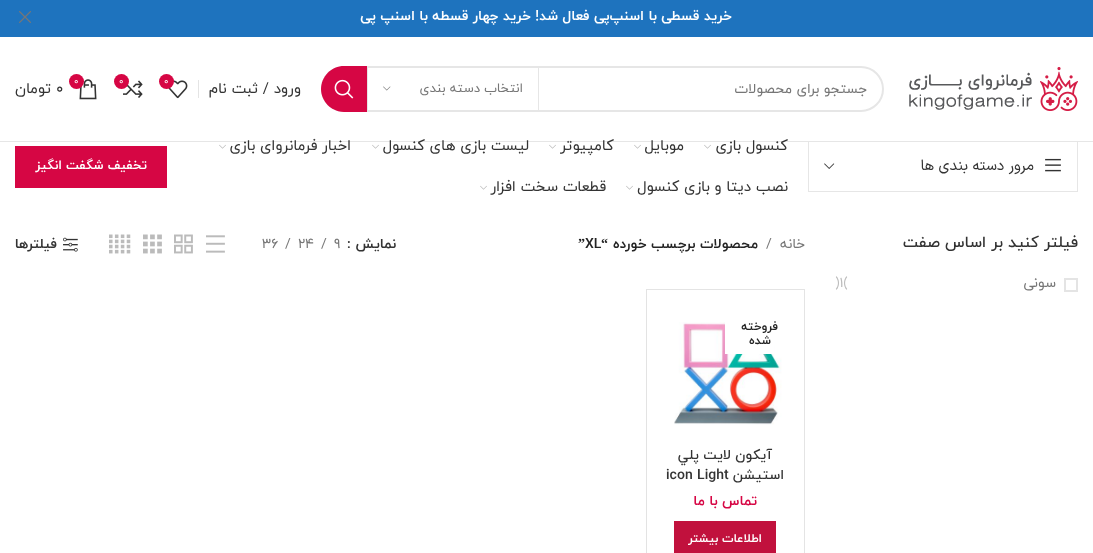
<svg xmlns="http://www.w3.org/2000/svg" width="1093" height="553">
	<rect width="100%" height="100%" fill="#FFFFFF" />
	<rect x="0" y="0" width="1093" height="37" fill="#1E73BE" />
	<text x="732" y="20" font-family="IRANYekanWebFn" font-size="14" font-weight="700" direction="rtl" fill="#FFFFFF">خرید قسطی با اسنپ‌پی فعال شد! خرید چهار قسطه با اسنپ پی</text>
	<image x="19" y="11" width="12" height="12" href="assets/img1.png" />
	<rect x="0" y="141" width="1093" height="1" fill="#E6E6E6" />
	<image x="909" y="67" width="169" height="44" href="assets/img2.png" />
	<rect x="322" y="67" width="561" height="44" rx="22" fill="none" stroke="#E6E6E6" stroke-width="2" />
	<text x="867" y="93" font-family="IRANYekanWebFn" font-size="14" direction="rtl" fill="#767676">جستجو برای محصولات</text>
	<rect x="538" y="68" width="1" height="42" fill="#E6E6E6" />
	<rect x="367" y="68" width="1" height="42" fill="#E6E6E6" />
	<text x="523" y="92" font-family="IRANYekanWebFn" font-size="13" direction="rtl" fill="#767676">انتخاب دسته بندی</text>
	<image x="383" y="86" width="8" height="5" href="assets/img3.png" />
	<path d="M344 66H367V112H344C331.5 112 321 101.5 321 89C321 76.5 331.5 66 344 66Z" fill="#D60644" />
	<image x="334" y="79" width="20" height="20" href="assets/img4.png" />
	<text x="301" y="93" font-family="IRANYekanWebFn" font-size="15" direction="rtl" fill="#333333">ورود / ثبت نام</text>
	<rect x="198" y="80" width="1" height="18" fill="#E4E4E4" />
	<image x="168" y="80" width="20" height="19" href="assets/img5.png" />
	<circle cx="166.5" cy="81.5" r="7.5" fill="#D60644" />
	<text x="164" y="84" font-family="IRANYekanWebFn" font-size="9" fill="#FFFFFF">0</text>
	<image x="123" y="80" width="20" height="18" href="assets/img6.png" />
	<circle cx="121.5" cy="81.5" r="7.5" fill="#D60644" />
	<text x="119" y="84" font-family="IRANYekanWebFn" font-size="9" fill="#FFFFFF">0</text>
	<image x="79" y="79" width="18" height="21" href="assets/img7.png" />
	<circle cx="76.5" cy="81.5" r="7.5" fill="#D60644" />
	<text x="74" y="84" font-family="IRANYekanWebFn" font-size="9" fill="#FFFFFF">0</text>
	<text x="56" y="93" font-family="IRANYekanWebFn" font-size="15" fill="#333333">۰</text>
	<text x="51" y="93" font-family="IRANYekanWebFn" font-size="15" direction="rtl" fill="#333333">تومان</text>
	<rect x="808.5" y="141.5" width="269" height="50" fill="none" stroke="#E6E6E6" />
	<image x="1045" y="158" width="16" height="14" href="assets/img8.png" />
	<text x="1034" y="170" font-family="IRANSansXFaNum" font-size="15" direction="rtl" fill="#333333">مرور دسته بندی ها</text>
	<image x="824" y="163" width="11" height="6" href="assets/img9.png" />
	<text x="788" y="150" font-family="IRANYekanWebFn" font-size="15" direction="rtl" fill="#333333">کنسول بازی</text>
	<image x="704" y="144" width="7" height="5" href="assets/img10.png" />
	<text x="684" y="150" font-family="IRANYekanWebFn" font-size="15" direction="rtl" fill="#333333">موبایل</text>
	<image x="634" y="144" width="7" height="5" href="assets/img10.png" />
	<text x="614" y="150" font-family="IRANYekanWebFn" font-size="15" direction="rtl" fill="#333333">کامپیوتر</text>
	<image x="549" y="144" width="7" height="5" href="assets/img10.png" />
	<text x="529" y="150" font-family="IRANYekanWebFn" font-size="15" direction="rtl" fill="#333333">لیست بازی های کنسول</text>
	<image x="372" y="144" width="7" height="5" href="assets/img10.png" />
	<text x="351" y="150" font-family="IRANYekanWebFn" font-size="15" direction="rtl" fill="#333333">اخبار فرمانروای بازی</text>
	<image x="219" y="144" width="7" height="5" href="assets/img10.png" />
	<text x="788" y="191" font-family="IRANYekanWebFn" font-size="15" direction="rtl" fill="#333333">نصب دیتا و بازی کنسول</text>
	<image x="626" y="185" width="7" height="5" href="assets/img10.png" />
	<text x="606" y="191" font-family="IRANYekanWebFn" font-size="15" direction="rtl" fill="#333333">قطعات سخت افزار</text>
	<image x="480" y="185" width="7" height="5" href="assets/img10.png" />
	<rect x="15" y="146" width="152" height="42" fill="#D60644" />
	<text x="147" y="169" font-family="IRANYekanWebFn" font-size="13" font-weight="700" direction="rtl" fill="#FFFFFF">تخفیف شگفت انگیز</text>
	<text x="1078" y="247" font-family="IRANYekanWebFn" font-size="16" font-weight="500" direction="rtl" fill="#333333">فیلتر کنید بر اساس صفت</text>
	<rect x="1065" y="279" width="12" height="12" fill="none" stroke="#E4E4E4" stroke-width="2" />
	<text x="1056" y="287" font-family="IRANYekanWebFn" font-size="14" direction="rtl" fill="#767676">سونی</text>
	<text x="835" y="287" font-family="IRANYekanWebFn" font-size="14" fill="#BBBBBB">)1(</text>
	<text x="805" y="248" font-family="IRANYekanWebFn" font-size="14" direction="rtl" fill="#767676">خانه</text>
	<text x="766" y="248" font-family="IRANYekanWebFn" font-size="14" fill="#767676">/</text>
	<text x="758" y="248" font-family="IRANYekanWebFn" font-size="14" font-weight="700" direction="rtl" fill="#242424">محصولات برچسب خورده</text>
	<text x="608" y="248" font-family="Liberation Serif" font-size="14" font-weight="700" direction="rtl" fill="#242424">“</text>
	<text x="585" y="248" font-family="IRANYekanWebFn" font-size="14" font-weight="700" fill="#242424">XL</text>
	<text x="578" y="248" font-family="Liberation Serif" font-size="14" font-weight="700" fill="#242424">”</text>
	<text x="396" y="248" font-family="IRANYekanWebFn" font-size="14" font-weight="700" direction="rtl" fill="#333333">نمایش</text>
	<text x="347" y="248" font-family="IRANYekanWebFn" font-size="14" font-weight="700" fill="#333333">:</text>
	<g font-family="IRANYekanWebFn" font-size="14" fill="#767676">
		<text x="334" y="248">9</text>
		<text x="321" y="248">/</text>
		<text x="298" y="248">24</text>
		<text x="285" y="248">/</text>
		<text x="262" y="248">36</text>
	</g>
	<image x="206" y="235" width="19" height="18" href="assets/img11.png" />
	<image x="174" y="234" width="19" height="20" href="assets/img12.png" />
	<image x="143" y="234" width="19" height="20" href="assets/img13.png" />
	<image x="109" y="234" width="22" height="20" href="assets/img14.png" />
	<image x="63" y="237" width="15" height="15" href="assets/img15.png" />
	<text x="57" y="248" font-family="IRANYekanWebFn" font-size="14" font-weight="700" direction="rtl" fill="#333333">فیلترها</text>
	<rect x="804" y="289" width="1" height="264" fill="#E4E4E4" />
	<path d="M646 289H804V290H647Z" fill="#E4E4E4" />
	<path d="M646 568V289L647 290V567Z" fill="#000000" fill-opacity="0.11" />
	<image x="674" y="322" width="108" height="103" href="assets/img16.png" />
	<rect x="725" y="322" width="49" height="32" fill="#FFFFFF" />
	<g font-family="IRANYekanWebFn" font-size="12" font-weight="700" direction="rtl" fill="#242424">
		<text x="778" y="330">فروخته</text>
		<text x="771" y="344">شده</text>
	</g>
	<g font-family="IRANYekanWebFn" font-size="14" font-weight="500" direction="rtl" fill="#333333">
		<text x="772" y="459">آيكون لايت پلي</text>
		<text x="784" y="479">استيشن</text>
	</g>
	<text x="666" y="479" font-family="IRANYekanWebFn" font-size="14" font-weight="500" fill="#333333">icon Light</text>
	<text x="757" y="505" font-family="IRANYekanWebFn" font-size="14" font-weight="700" direction="rtl" fill="#D60644">تماس با ما</text>
	<rect x="674" y="521" width="102" height="32" fill="#C1113D" />
	<text x="762" y="542" font-family="IRANYekanWebFn" font-size="12" font-weight="700" direction="rtl" fill="#FFFFFF">اطلاعات بیشتر</text>
</svg>
